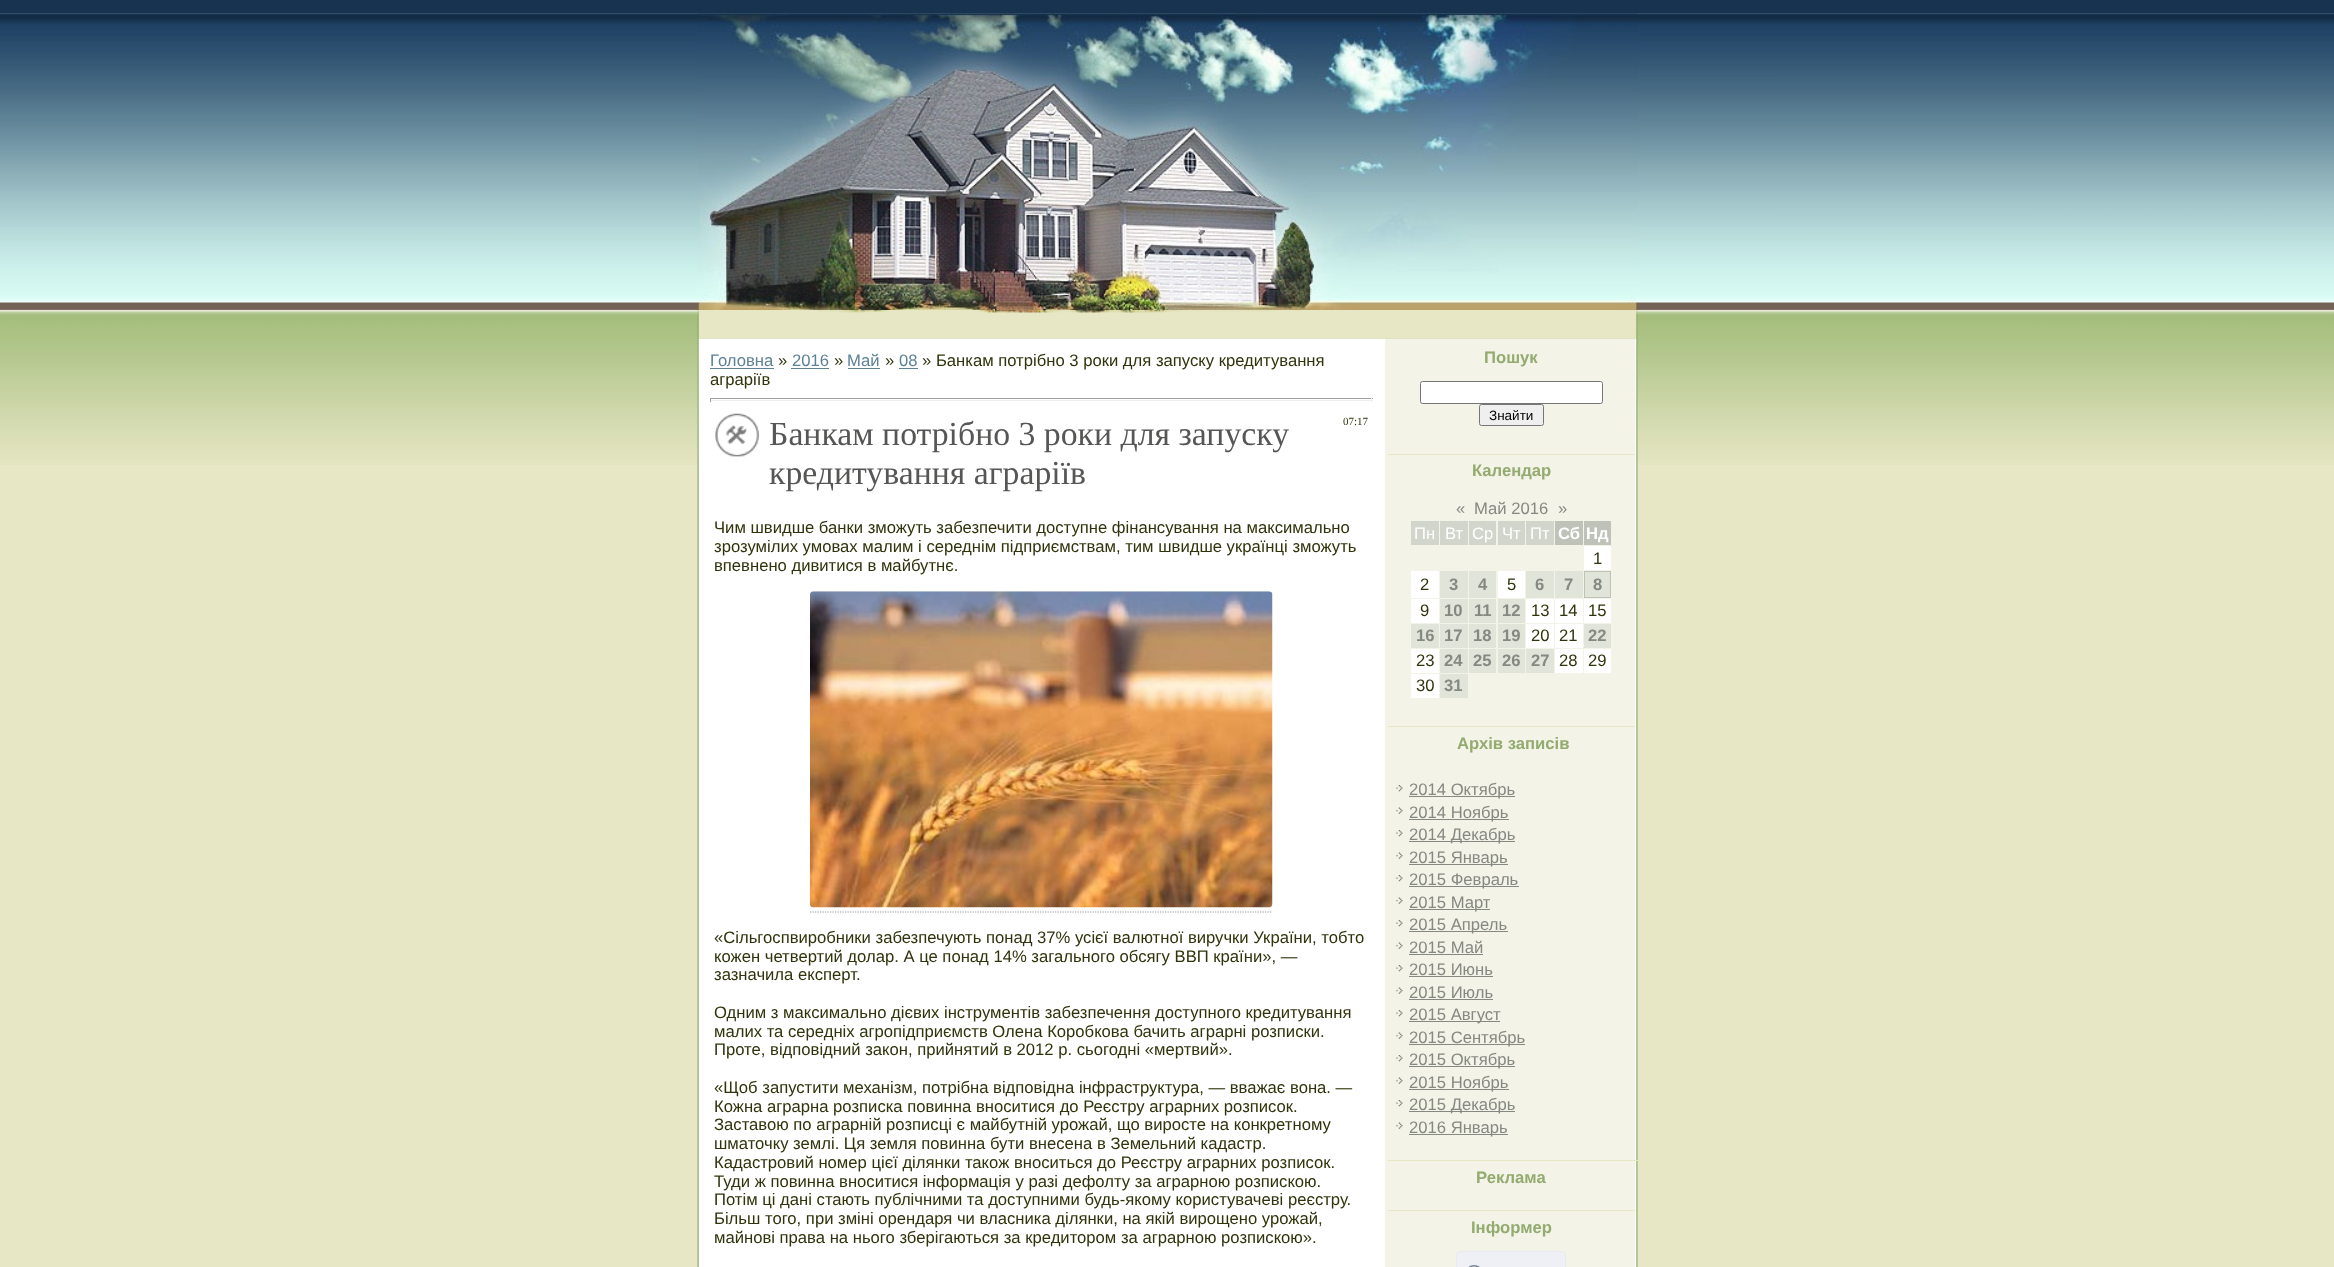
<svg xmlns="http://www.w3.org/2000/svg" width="2334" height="1267">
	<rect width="100%" height="100%" fill="#E7E7C5" />
	<rect x="0" y="0" width="2334" height="13" fill="#173350" />
	<rect x="0" y="13" width="2334" height="1" fill="#3D5A71" />
	<image x="0" y="13" width="2334" height="452" href="assets/img1.png" />
	<image x="697" y="13" width="941" height="297" href="assets/img2.png" />
	<image x="697" y="310" width="941" height="29" href="assets/img3.png" />
	<image x="697" y="338" width="941" height="929" href="assets/img4.png" />
	<text x="710" y="366" font-family="Liberation Sans" font-size="16.65" fill="#5D8195">Головна</text>
	<rect x="710" y="368" width="64" height="1" fill="#5D8195" />
	<text x="778" y="366" font-family="Liberation Sans" font-size="16.65" fill="#30330B">»</text>
	<text x="792" y="366" font-family="Liberation Sans" font-size="16.65" fill="#5D8195">2016</text>
	<rect x="791" y="368" width="38" height="1" fill="#5D8195" />
	<text x="834" y="366" font-family="Liberation Sans" font-size="16.65" fill="#30330B">»</text>
	<text x="847" y="366" font-family="Liberation Sans" font-size="16.65" fill="#5D8195">Май</text>
	<rect x="848" y="368" width="32" height="1" fill="#5D8195" />
	<text x="885" y="366" font-family="Liberation Sans" font-size="16.65" fill="#30330B">»</text>
	<text x="899" y="366" font-family="Liberation Sans" font-size="16.65" fill="#5D8195">08</text>
	<rect x="899" y="368" width="19" height="1" fill="#5D8195" />
	<g font-family="Liberation Sans" font-size="16.65" fill="#30330B">
		<text x="922" y="366">» Банкам потрібно 3 роки для запуску кредитування</text>
		<text x="710" y="385">аграріїв</text>
	</g>
	<rect x="710" y="398" width="663" height="1" fill="#9F9F9F" />
	<rect x="1371" y="398" width="1" height="4" fill="#EEEEEE" />
	<rect x="710" y="400" width="663" height="1" fill="#EEEEEE" />
	<rect x="710" y="398" width="1" height="4" fill="#9F9F9F" />
	<image x="715" y="413" width="44" height="44" href="assets/img5.png" />
	<text x="769" y="445" font-family="Liberation Serif" font-size="33.75" fill="#565755">Банкам потрібно 3 роки для запуску</text>
	<text x="1343" y="425" font-family="Liberation Serif" font-size="11" fill="#30330B">07:17</text>
	<text x="769" y="484" font-family="Liberation Serif" font-size="33.75" fill="#565755">кредитування аграріїв</text>
	<g font-family="Liberation Sans" font-size="16.65" fill="#30330B">
		<text x="714" y="533">Чим швидше банки зможуть забезпечити доступне фінансування на максимально</text>
		<text x="714" y="552">зрозумілих умовах малим і середнім підприємствам, тим швидше українці зможуть</text>
		<text x="714" y="571">впевнено дивитися в майбутнє.</text>
	</g>
	<image x="810" y="591" width="463" height="317" href="assets/img6.png" />
	<path d="M810 912H1272.5" fill="none" stroke="#999999" stroke-width="1.2" stroke-dasharray="1.25 1.25" />
	<g font-family="Liberation Sans" font-size="16.65" fill="#30330B">
		<text x="714" y="943">«Сільгоспвиробники забезпечують понад 37% усієї валютної виручки України, тобто</text>
		<text x="714" y="962">кожен четвертий долар. А це понад 14% загального обсягу ВВП країни», —</text>
		<text x="714" y="980">зазначила експерт.</text>
		<text x="714" y="1018">Одним з максимально дієвих інструментів забезпечення доступного кредитування</text>
		<text x="714" y="1037">малих та середніх агропідприємств Олена Коробкова бачить аграрні розписки.</text>
		<text x="714" y="1055">Проте, відповідний закон, прийнятий в 2012 р. сьогодні «мертвий».</text>
		<text x="714" y="1093">«Щоб запустити механізм, потрібна відповідна інфраструктура, — вважає вона. —</text>
		<text x="714" y="1112">Кожна аграрна розписка повинна вноситися до Реєстру аграрних розписок.</text>
		<text x="714" y="1130">Заставою по аграрній розписці є майбутній урожай, що виросте на конкретному</text>
		<text x="714" y="1149">шматочку землі. Ця земля повинна бути внесена в Земельний кадастр.</text>
		<text x="714" y="1168">Кадастровий номер цієї ділянки також вноситься до Реєстру аграрних розписок.</text>
		<text x="714" y="1187">Туди ж повинна вноситися інформація у разі дефолту за аграрною розпискою.</text>
		<text x="714" y="1205">Потім ці дані стають публічними та доступними будь-якому користувачеві реєстру.</text>
		<text x="714" y="1224">Більш того, при зміні орендаря чи власника ділянки, на якій вирощено урожай,</text>
		<text x="714" y="1243">майнові права на нього зберігаються за кредитором за аграрною розпискою».</text>
	</g>
	<text x="1484" y="363" font-family="Liberation Sans" font-size="16.65" font-weight="700" fill="#93AA70">Пошук</text>
	<rect x="1388" y="454" width="247" height="1" fill="#E7E7C5" />
	<rect x="1420.5" y="381.5" width="182" height="22" rx="2" fill="#FFFFFF" stroke="#767676" />
	<rect x="1479.5" y="404.5" width="64" height="21" rx="2" fill="#EFEFEF" stroke="#767676" />
	<text x="1489" y="420" font-family="Liberation Sans" font-size="13.5" fill="#000000">Знайти</text>
	<text x="1472" y="476" font-family="Liberation Sans" font-size="16.65" font-weight="700" fill="#93AA70">Календар</text>
	<rect x="1388" y="726" width="247" height="1" fill="#E7E7C5" />
	<g font-family="Liberation Sans" font-size="16.65" fill="#868882">
		<text x="1456" y="514">«</text>
		<text x="1474" y="514">Май 2016</text>
		<text x="1558" y="514">»</text>
	</g>
	<rect x="1411" y="521" width="28" height="24" fill="#D2D5CB" />
	<text x="1414" y="539" font-family="Liberation Sans" font-size="16.65" fill="#FFFFFF">Пн</text>
	<rect x="1440" y="521" width="28" height="24" fill="#D2D5CB" />
	<text x="1445" y="539" font-family="Liberation Sans" font-size="16.65" fill="#FFFFFF">Вт</text>
	<rect x="1469" y="521" width="27" height="24" fill="#D2D5CB" />
	<text x="1472" y="539" font-family="Liberation Sans" font-size="16.65" fill="#FFFFFF">Ср</text>
	<rect x="1498" y="521" width="27" height="24" fill="#D2D5CB" />
	<text x="1502" y="539" font-family="Liberation Sans" font-size="16.65" fill="#FFFFFF">Чт</text>
	<rect x="1526" y="521" width="28" height="24" fill="#D2D5CB" />
	<text x="1530" y="539" font-family="Liberation Sans" font-size="16.65" fill="#FFFFFF">Пт</text>
	<rect x="1555" y="521" width="28" height="24" fill="#BFC2B9" />
	<text x="1558" y="539" font-family="Liberation Sans" font-size="16.65" font-weight="700" fill="#FFFFFF">Сб</text>
	<rect x="1584" y="521" width="27" height="24" fill="#BFC2B9" />
	<text x="1586" y="539" font-family="Liberation Sans" font-size="16.65" font-weight="700" fill="#FFFFFF">Нд</text>
	<rect x="1584" y="546" width="27" height="24" fill="#FFFFFF" />
	<text x="1593" y="564" font-family="Liberation Sans" font-size="16.65" fill="#30330B">1</text>
	<rect x="1411" y="571" width="28" height="27" fill="#FFFFFF" />
	<text x="1420" y="590" font-family="Liberation Sans" font-size="16.65" fill="#30330B">2</text>
	<rect x="1440" y="571" width="28" height="27" fill="#E0E4D9" />
	<text x="1449" y="590" font-family="Liberation Sans" font-size="16.65" font-weight="700" fill="#868882">3</text>
	<rect x="1469" y="571" width="27" height="27" fill="#E0E4D9" />
	<text x="1478" y="590" font-family="Liberation Sans" font-size="16.65" font-weight="700" fill="#868882">4</text>
	<rect x="1498" y="571" width="27" height="27" fill="#FFFFFF" />
	<text x="1507" y="590" font-family="Liberation Sans" font-size="16.65" fill="#30330B">5</text>
	<rect x="1526" y="571" width="28" height="27" fill="#E0E4D9" />
	<text x="1535" y="590" font-family="Liberation Sans" font-size="16.65" font-weight="700" fill="#868882">6</text>
	<rect x="1555" y="571" width="28" height="27" fill="#E0E4D9" />
	<text x="1564" y="590" font-family="Liberation Sans" font-size="16.65" font-weight="700" fill="#868882">7</text>
	<rect x="1584.5" y="571.5" width="26" height="26" fill="#E0E4D9" stroke="#BFC2B9" />
	<text x="1593" y="590" font-family="Liberation Sans" font-size="16.65" font-weight="700" fill="#868882">8</text>
	<rect x="1411" y="599" width="28" height="24" fill="#FFFFFF" />
	<text x="1420" y="616" font-family="Liberation Sans" font-size="16.65" fill="#30330B">9</text>
	<rect x="1440" y="599" width="28" height="24" fill="#E0E4D9" />
	<text x="1444" y="616" font-family="Liberation Sans" font-size="16.65" font-weight="700" fill="#868882">10</text>
	<rect x="1469" y="599" width="27" height="24" fill="#E0E4D9" />
	<text x="1474" y="616" font-family="Liberation Sans" font-size="16.65" font-weight="700" fill="#868882">11</text>
	<rect x="1498" y="599" width="27" height="24" fill="#E0E4D9" />
	<text x="1502" y="616" font-family="Liberation Sans" font-size="16.65" font-weight="700" fill="#868882">12</text>
	<rect x="1526" y="599" width="28" height="24" fill="#FFFFFF" />
	<text x="1531" y="616" font-family="Liberation Sans" font-size="16.65" fill="#30330B">13</text>
	<rect x="1555" y="599" width="28" height="24" fill="#FFFFFF" />
	<text x="1559" y="616" font-family="Liberation Sans" font-size="16.65" fill="#30330B">14</text>
	<rect x="1584" y="599" width="27" height="24" fill="#FFFFFF" />
	<text x="1588" y="616" font-family="Liberation Sans" font-size="16.65" fill="#30330B">15</text>
	<rect x="1411" y="624" width="28" height="24" fill="#E0E4D9" />
	<text x="1416" y="641" font-family="Liberation Sans" font-size="16.65" font-weight="700" fill="#868882">16</text>
	<rect x="1440" y="624" width="28" height="24" fill="#E0E4D9" />
	<text x="1444" y="641" font-family="Liberation Sans" font-size="16.65" font-weight="700" fill="#868882">17</text>
	<rect x="1469" y="624" width="27" height="24" fill="#E0E4D9" />
	<text x="1473" y="641" font-family="Liberation Sans" font-size="16.65" font-weight="700" fill="#868882">18</text>
	<rect x="1498" y="624" width="27" height="24" fill="#E0E4D9" />
	<text x="1502" y="641" font-family="Liberation Sans" font-size="16.65" font-weight="700" fill="#868882">19</text>
	<rect x="1526" y="624" width="28" height="24" fill="#FFFFFF" />
	<text x="1531" y="641" font-family="Liberation Sans" font-size="16.65" fill="#30330B">20</text>
	<rect x="1555" y="624" width="28" height="24" fill="#FFFFFF" />
	<text x="1559" y="641" font-family="Liberation Sans" font-size="16.65" fill="#30330B">21</text>
	<rect x="1584" y="624" width="27" height="24" fill="#E0E4D9" />
	<text x="1588" y="641" font-family="Liberation Sans" font-size="16.65" font-weight="700" fill="#868882">22</text>
	<rect x="1411" y="649" width="28" height="24" fill="#FFFFFF" />
	<text x="1416" y="666" font-family="Liberation Sans" font-size="16.65" fill="#30330B">23</text>
	<rect x="1440" y="649" width="28" height="24" fill="#E0E4D9" />
	<text x="1444" y="666" font-family="Liberation Sans" font-size="16.65" font-weight="700" fill="#868882">24</text>
	<rect x="1469" y="649" width="27" height="24" fill="#E0E4D9" />
	<text x="1473" y="666" font-family="Liberation Sans" font-size="16.65" font-weight="700" fill="#868882">25</text>
	<rect x="1498" y="649" width="27" height="24" fill="#E0E4D9" />
	<text x="1502" y="666" font-family="Liberation Sans" font-size="16.65" font-weight="700" fill="#868882">26</text>
	<rect x="1526" y="649" width="28" height="24" fill="#E0E4D9" />
	<text x="1531" y="666" font-family="Liberation Sans" font-size="16.65" font-weight="700" fill="#868882">27</text>
	<rect x="1555" y="649" width="28" height="24" fill="#FFFFFF" />
	<text x="1559" y="666" font-family="Liberation Sans" font-size="16.65" fill="#30330B">28</text>
	<rect x="1584" y="649" width="27" height="24" fill="#FFFFFF" />
	<text x="1588" y="666" font-family="Liberation Sans" font-size="16.65" fill="#30330B">29</text>
	<rect x="1411" y="674" width="28" height="24" fill="#FFFFFF" />
	<text x="1416" y="691" font-family="Liberation Sans" font-size="16.65" fill="#30330B">30</text>
	<rect x="1440" y="674" width="28" height="24" fill="#E0E4D9" />
	<text x="1444" y="691" font-family="Liberation Sans" font-size="16.65" font-weight="700" fill="#868882">31</text>
	<text x="1457" y="749" font-family="Liberation Sans" font-size="16.65" font-weight="700" fill="#93AA70">Архів записів</text>
	<rect x="1388" y="1160" width="251" height="1" fill="#E7E7C5" />
	<image x="1396" y="785" width="7" height="7" href="assets/img7.png" />
	<rect x="1409" y="796" width="106" height="1" fill="#868882" />
	<text x="1409" y="795" font-family="Liberation Sans" font-size="16.65" fill="#868882">2014 Октябрь</text>
	<image x="1396" y="807" width="7" height="7" href="assets/img8.png" />
	<rect x="1409" y="819" width="100" height="1" fill="#868882" />
	<text x="1409" y="818" font-family="Liberation Sans" font-size="16.65" fill="#868882">2014 Ноябрь</text>
	<image x="1396" y="830" width="7" height="7" href="assets/img7.png" />
	<rect x="1409" y="841" width="106" height="1" fill="#868882" />
	<text x="1409" y="840" font-family="Liberation Sans" font-size="16.65" fill="#868882">2014 Декабрь</text>
	<image x="1396" y="852" width="7" height="7" href="assets/img8.png" />
	<rect x="1409" y="864" width="99" height="1" fill="#868882" />
	<text x="1409" y="863" font-family="Liberation Sans" font-size="16.65" fill="#868882">2015 Январь</text>
	<image x="1396" y="875" width="7" height="7" href="assets/img7.png" />
	<rect x="1409" y="886" width="110" height="1" fill="#868882" />
	<text x="1409" y="885" font-family="Liberation Sans" font-size="16.65" fill="#868882">2015 Февраль</text>
	<image x="1396" y="897" width="7" height="7" href="assets/img8.png" />
	<rect x="1409" y="909" width="81" height="1" fill="#868882" />
	<text x="1409" y="908" font-family="Liberation Sans" font-size="16.65" fill="#868882">2015 Март</text>
	<image x="1396" y="920" width="7" height="7" href="assets/img7.png" />
	<rect x="1409" y="931" width="99" height="1" fill="#868882" />
	<text x="1409" y="930" font-family="Liberation Sans" font-size="16.65" fill="#868882">2015 Апрель</text>
	<image x="1396" y="942" width="7" height="7" href="assets/img8.png" />
	<text x="1409" y="953" font-family="Liberation Sans" font-size="16.65" fill="#868882">2015 Май</text>
	<rect x="1409" y="954" width="74" height="1" fill="#868882" />
	<image x="1396" y="965" width="7" height="7" href="assets/img7.png" />
	<text x="1409" y="975" font-family="Liberation Sans" font-size="16.65" fill="#868882">2015 Июнь</text>
	<rect x="1409" y="976" width="84" height="1" fill="#868882" />
	<image x="1396" y="987" width="7" height="7" href="assets/img8.png" />
	<text x="1409" y="998" font-family="Liberation Sans" font-size="16.65" fill="#868882">2015 Июль</text>
	<rect x="1409" y="999" width="84" height="1" fill="#868882" />
	<image x="1396" y="1010" width="7" height="7" href="assets/img7.png" />
	<rect x="1409" y="1021" width="91" height="1" fill="#868882" />
	<text x="1409" y="1020" font-family="Liberation Sans" font-size="16.65" fill="#868882">2015 Август</text>
	<image x="1396" y="1032" width="7" height="7" href="assets/img8.png" />
	<rect x="1409" y="1044" width="116" height="1" fill="#868882" />
	<text x="1409" y="1043" font-family="Liberation Sans" font-size="16.65" fill="#868882">2015 Сентябрь</text>
	<image x="1396" y="1055" width="7" height="7" href="assets/img7.png" />
	<rect x="1409" y="1066" width="106" height="1" fill="#868882" />
	<text x="1409" y="1065" font-family="Liberation Sans" font-size="16.65" fill="#868882">2015 Октябрь</text>
	<image x="1396" y="1077" width="7" height="7" href="assets/img8.png" />
	<rect x="1409" y="1089" width="100" height="1" fill="#868882" />
	<text x="1409" y="1088" font-family="Liberation Sans" font-size="16.65" fill="#868882">2015 Ноябрь</text>
	<image x="1396" y="1100" width="7" height="7" href="assets/img7.png" />
	<rect x="1409" y="1111" width="106" height="1" fill="#868882" />
	<text x="1409" y="1110" font-family="Liberation Sans" font-size="16.65" fill="#868882">2015 Декабрь</text>
	<image x="1396" y="1122" width="7" height="7" href="assets/img8.png" />
	<rect x="1409" y="1134" width="99" height="1" fill="#868882" />
	<text x="1409" y="1133" font-family="Liberation Sans" font-size="16.65" fill="#868882">2016 Январь</text>
	<text x="1476" y="1183" font-family="Liberation Sans" font-size="16.65" font-weight="700" fill="#93AA70">Реклама</text>
	<rect x="1388" y="1210" width="247" height="1" fill="#E7E7C5" />
	<text x="1471" y="1233" font-family="Liberation Sans" font-size="16.65" font-weight="700" fill="#93AA70">Інформер</text>
	<rect x="1456.5" y="1251.5" width="109" height="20" rx="3.5" fill="#EEF0F5" stroke="#E7EAF1" />
	<image x="1468" y="1265" width="12" height="2" href="assets/img9.png" />
</svg>
